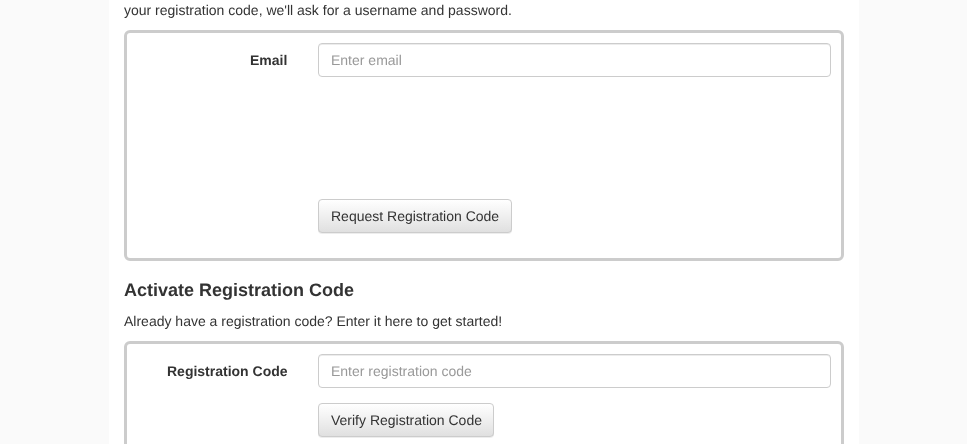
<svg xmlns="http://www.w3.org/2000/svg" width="967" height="444">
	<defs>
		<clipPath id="clip1"><rect x="318" y="199" width="194" height="34" rx="4" /></clipPath>
		<linearGradient id="g1" gradientUnits="userSpaceOnUse" x1="415" y1="200" x2="415" y2="232"><stop offset="0" stop-color="#FFFFFF" /><stop offset="1" stop-color="#E0E0E0" /></linearGradient>
		<clipPath id="clip2"><rect x="318" y="403" width="176" height="34" rx="4" /></clipPath>
		<linearGradient id="g2" gradientUnits="userSpaceOnUse" x1="406" y1="404" x2="406" y2="436"><stop offset="0" stop-color="#FFFFFF" /><stop offset="1" stop-color="#E0E0E0" /></linearGradient>
	</defs>
	<rect width="100%" height="100%" fill="#FAFAFA" />
	<rect x="109" y="0" width="750" height="444" fill="#FFFFFF" />
	<text x="124" y="15" font-family="Liberation Sans" font-size="14" fill="#333333">your registration code, we'll ask for a username and password.</text>
	<rect x="125.5" y="31.5" width="717" height="228" rx="4.5" fill="none" stroke="#CCCCCC" stroke-width="3" />
	<text x="250" y="65" font-family="Liberation Sans" font-size="14" font-weight="700" fill="#333333">Email</text>
	<path d="M322 45H827C829 45 830 46 830 48V46L828 44H322C320 44 319 46 319 48C319 46 320 45 322 45Z" fill="#ECECEC" />
	<rect x="318.5" y="43.5" width="512" height="33" rx="3.5" fill="none" stroke="#CCCCCC" />
	<text x="331" y="65" font-family="Liberation Sans" font-size="14" fill="#999999">Enter email</text>
	<rect x="318" y="200" width="194" height="34" rx="4" fill="#000000" fill-opacity="0.07" filter="blur(0.5px)" />
	<g clip-path="url(#clip1)">
		<rect x="318" y="200" width="194" height="32" fill="url(#g1)" />
	</g>
	<rect x="318.5" y="199.5" width="193" height="33" rx="3.5" fill="none" stroke="#CCCCCC" />
	<text x="331" y="221" font-family="Liberation Sans" font-size="14" fill="#333333">Request Registration Code</text>
	<text x="124" y="296" font-family="Liberation Sans" font-size="18" font-weight="700" fill="#333333">Activate Registration Code</text>
	<text x="124" y="326" font-family="Liberation Sans" font-size="14" fill="#333333">Already have a registration code? Enter it here to get started!</text>
	<rect x="125.5" y="342.5" width="717" height="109" rx="4.5" fill="none" stroke="#CCCCCC" stroke-width="3" />
	<text x="167" y="376" font-family="Liberation Sans" font-size="14" font-weight="700" fill="#333333">Registration Code</text>
	<path d="M322 356H827C829 356 830 357 830 359V357L828 355H322C320 355 319 357 319 359C319 357 320 356 322 356Z" fill="#ECECEC" />
	<rect x="318.5" y="354.5" width="512" height="33" rx="3.5" fill="none" stroke="#CCCCCC" />
	<text x="331" y="376" font-family="Liberation Sans" font-size="14" fill="#999999">Enter registration code</text>
	<rect x="318" y="404" width="176" height="34" rx="4" fill="#000000" fill-opacity="0.07" filter="blur(0.5px)" />
	<g clip-path="url(#clip2)">
		<rect x="318" y="404" width="176" height="32" fill="url(#g2)" />
	</g>
	<rect x="318.5" y="403.5" width="175" height="33" rx="3.5" fill="none" stroke="#CCCCCC" />
	<text x="331" y="425" font-family="Liberation Sans" font-size="14" fill="#333333">Verify Registration Code</text>
</svg>
